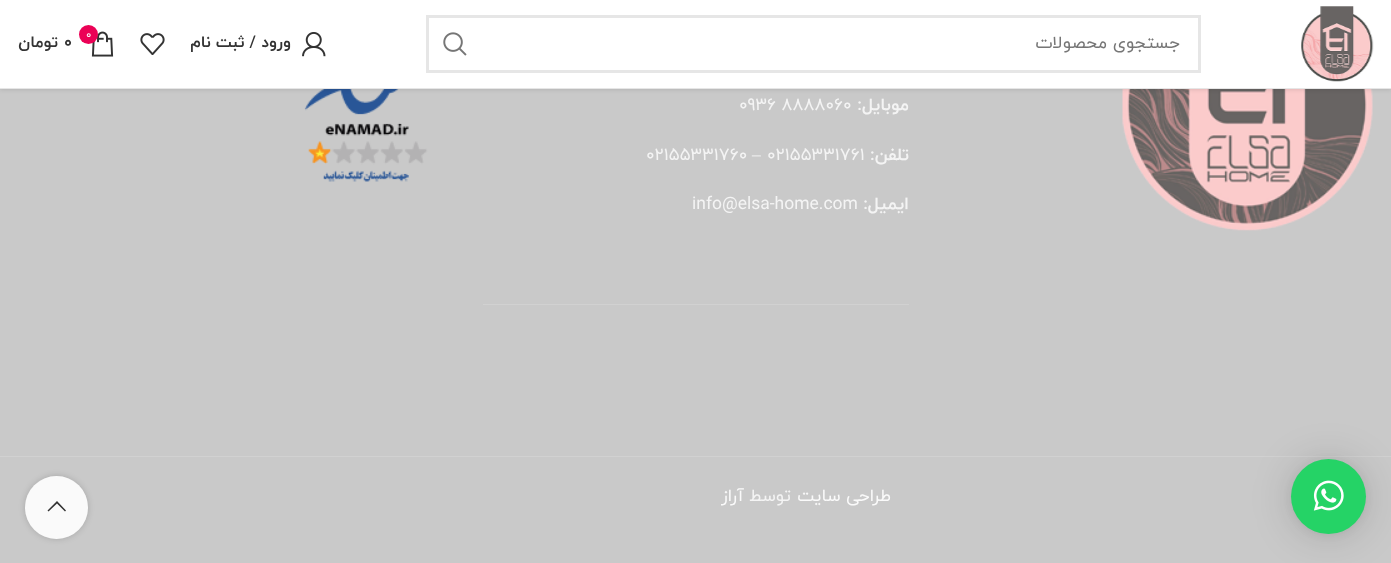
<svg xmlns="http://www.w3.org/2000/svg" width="1391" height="563">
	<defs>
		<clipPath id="clip1"><path d="M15 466H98V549H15ZM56.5 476C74 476 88 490 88 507.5C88 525 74 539 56.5 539C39 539 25 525 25 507.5C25 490 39 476 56.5 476Z" clip-rule="evenodd" /></clipPath>
	</defs>
	<rect width="100%" height="100%" fill="#C9C9C9" />
	<rect x="0" y="456" width="1391" height="1" fill="#D1D1D1" />
	<rect x="1291" y="461" width="75" height="75" rx="37.5" fill="#000000" fill-opacity="0.16" filter="blur(20px)" />
	<rect x="1291" y="460" width="75" height="75" rx="37.5" fill="#000000" fill-opacity="0.06" filter="blur(4px)" />
	<circle cx="1328.5" cy="496.5" r="37.5" fill="#25D366" />
	<image x="1313" y="480" width="31" height="31" href="assets/img1.png" />
	<image x="1122" y="89" width="251" height="142" href="assets/img7.png" />
	<image x="304" y="89" width="124" height="93" href="assets/img8.png" />
	<rect x="0" y="1" width="1391" height="89" fill="#000000" fill-opacity="0.1" filter="blur(2px)" />
	<rect x="0" y="0" width="1391" height="88" fill="#FFFFFF" />
	<rect x="0" y="88" width="1391" height="1" fill="#E6E6E6" />
	<image x="1301" y="6" width="73" height="76" href="assets/img2.png" />
	<rect x="427.5" y="16.5" width="772" height="55" fill="none" stroke="#E6E6E6" stroke-width="3" />
	<text x="1180" y="48" font-family="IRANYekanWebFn" font-size="17.5" direction="rtl" fill="#767676">جستجوی محصولات</text>
	<image x="443" y="32" width="24" height="24" href="assets/img3.png" />
	<image x="302" y="32" width="24" height="25" href="assets/img4.png" />
	<text x="291" y="47" font-family="IRANYekanWebFn" font-size="16.25" font-weight="700" direction="rtl" fill="#333333">ورود / ثبت نام</text>
	<image x="140" y="33" width="25" height="22" href="assets/img5.png" />
	<image x="91" y="31" width="23" height="26" href="assets/img6.png" />
	<circle cx="88.5" cy="34.5" r="9.5" fill="#EB0156" />
	<text x="86" y="38" font-family="IRANYekanWebFn" font-size="11" fill="#FAFAFA">0</text>
	<text x="64" y="47" font-family="IRANYekanWebFn" font-size="16.25" font-weight="700" fill="#333333">0</text>
	<text x="58" y="47" font-family="IRANYekanWebFn" font-size="16.25" font-weight="700" direction="rtl" fill="#333333">تومان</text>
	<rect x="483" y="304" width="426" height="1" fill="#D1D1D1" />
	<text x="909" y="110" font-family="IRANYekanWebFn" font-size="17.5" font-weight="700" direction="rtl" fill="#F4F4F4">موبایل:</text>
	<text x="739" y="110" font-family="IRANYekanWebFn" font-size="17.5" fill="#F4F4F4">0936 8888060</text>
	<text x="909" y="160" font-family="IRANYekanWebFn" font-size="17.5" font-weight="700" direction="rtl" fill="#F4F4F4">تلفن:</text>
	<text x="767" y="160" font-family="IRANYekanWebFn" font-size="17.5" fill="#F4F4F4">02155331761</text>
	<text x="752" y="160" font-family="Liberation Serif" font-size="17.5" fill="#F4F4F4">–</text>
	<text x="646" y="160" font-family="IRANYekanWebFn" font-size="17.5" fill="#F4F4F4">02155331760</text>
	<text x="909" y="209" font-family="IRANYekanWebFn" font-size="17.5" font-weight="700" direction="rtl" fill="#F4F4F4">ایمیل:</text>
	<text x="692" y="209" font-family="IRANYekanWebFn" font-size="17.5" fill="#F4F4F4">info@elsa-home.com</text>
	<text x="891" y="501" font-family="IRANYekanWebFn" font-size="17.5" direction="rtl" fill="#FAFAFA">طراحی سایت</text>
	<text x="791" y="501" font-family="IRANYekanWebFn" font-size="17.5" direction="rtl" fill="#F4F4F4">توسط</text>
	<text x="744" y="501" font-family="IRANYekanWebFn" font-size="17.5" direction="rtl" fill="#FAFAFA">آراز</text>
	<g clip-path="url(#clip1)">
		<rect x="25" y="476" width="63" height="63" rx="31.5" fill="#000000" fill-opacity="0.17" filter="blur(3px)" />
	</g>
	<circle cx="56.5" cy="507.5" r="31.5" fill="#FFFFFF" fill-opacity="0.9" />
	<path d="M65 511.5L66 510.5L57 501L47.5 510.5L48.5 511.5L57 503.5Z" fill="#333333" />
</svg>
